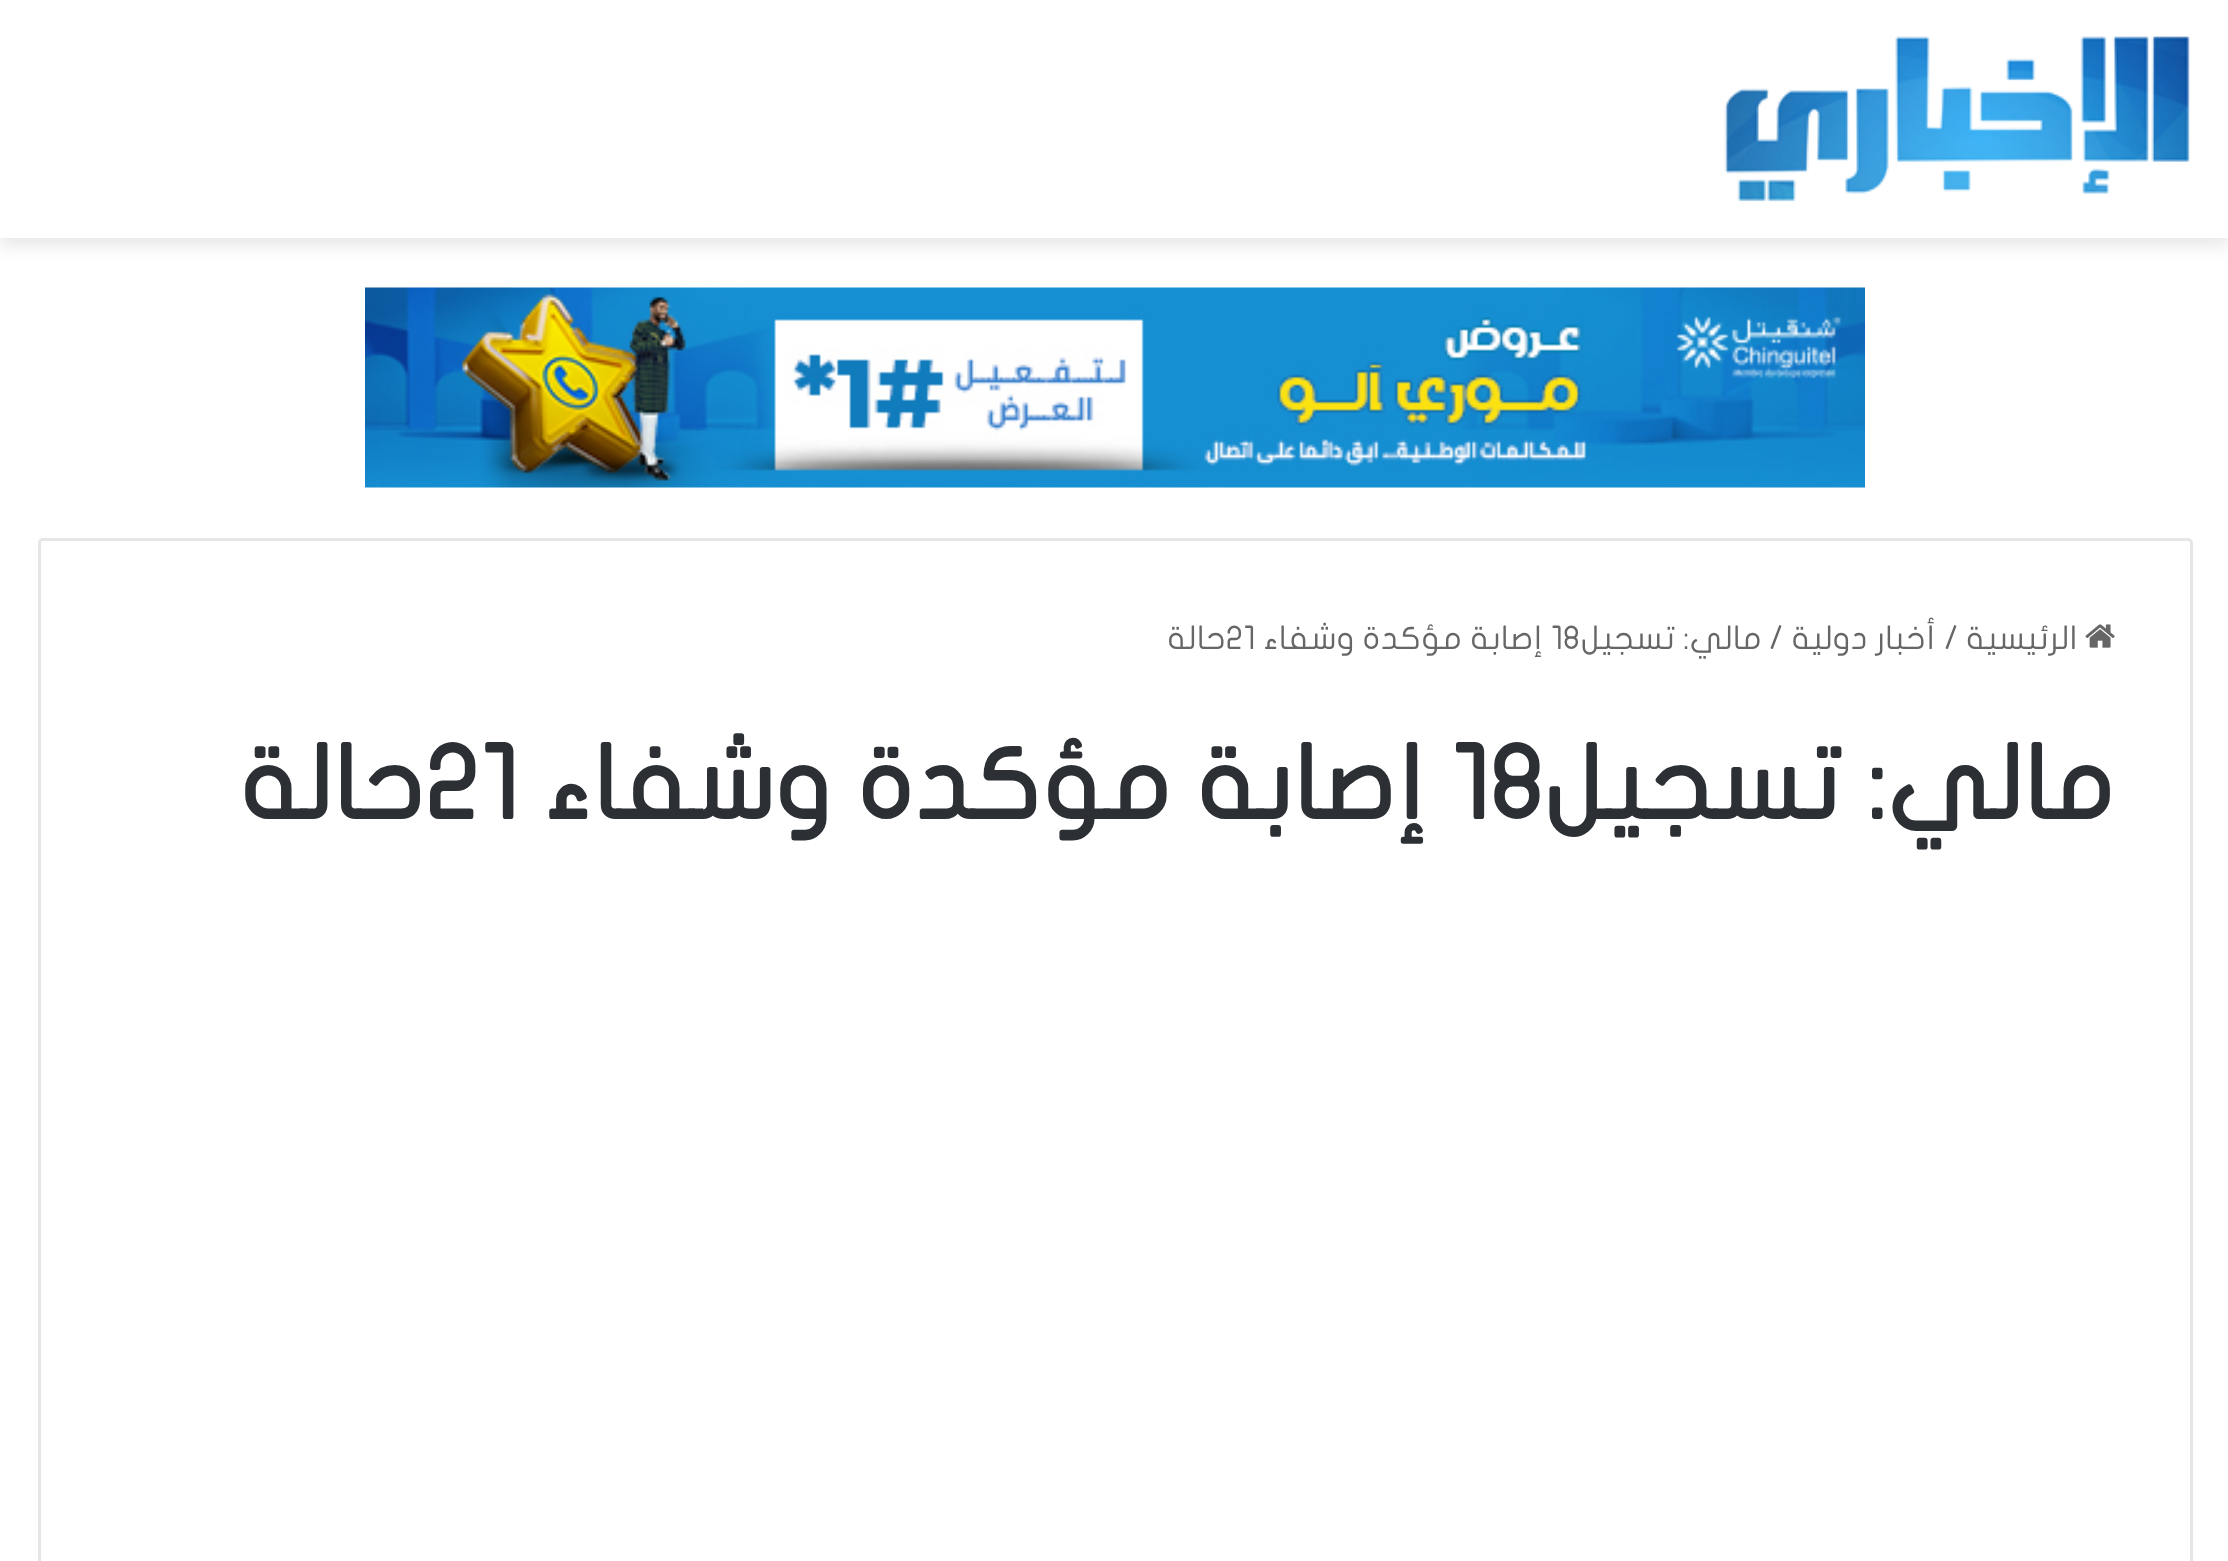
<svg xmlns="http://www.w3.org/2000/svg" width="2228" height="1561">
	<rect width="100%" height="100%" fill="#FFFFFF" />
	<rect x="0" y="8" width="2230" height="237" fill="#000000" fill-opacity="0.1" filter="blur(9px)" />
	<rect x="0" y="0" width="2228" height="238" fill="#FFFFFF" />
	<image x="1724" y="36" width="466" height="166" href="assets/img1.png" />
	<image x="365" y="287" width="1500" height="201" href="assets/img2.png" />
	<rect x="39.5" y="539.5" width="2152" height="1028" rx="3.5" fill="none" stroke="#E6E6E6" stroke-width="3" />
	<image x="2085" y="624" width="30" height="24" href="assets/img3.png" />
	<text x="2077" y="649" font-family="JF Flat" font-size="32.5" direction="rtl" fill="#666666">الرئيسية</text>
	<text x="1944" y="649" font-family="JF Flat" font-size="32.5" fill="#666666">/</text>
	<text x="1936" y="649" font-family="JF Flat" font-size="32.5" direction="rtl" fill="#666666">أخبار دولية</text>
	<text x="1769" y="649" font-family="JF Flat" font-size="32.5" fill="#666666">/</text>
	<text x="1762" y="649" font-family="JF Flat" font-size="32.5" direction="rtl" fill="#666666">مالي: تسجيل</text>
	<text x="1551" y="649" font-family="JF Flat" font-size="32.5" fill="#666666">18</text>
	<text x="1543" y="649" font-family="JF Flat" font-size="32.5" direction="rtl" fill="#666666">إصابة مؤكدة وشفاء</text>
	<text x="1226" y="649" font-family="JF Flat" font-size="32.5" fill="#666666">21</text>
	<text x="1226" y="649" font-family="JF Flat" font-size="32.5" direction="rtl" fill="#666666">حالة</text>
	<text x="2115" y="819" font-family="JF Flat" font-size="102.5" font-weight="700" direction="rtl" fill="#2C2F34">مالي: تسجيل</text>
	<text x="1451" y="819" font-family="JF Flat" font-size="102.5" font-weight="700" fill="#2C2F34">18</text>
	<text x="1426" y="819" font-family="JF Flat" font-size="102.5" font-weight="700" direction="rtl" fill="#2C2F34">إصابة مؤكدة وشفاء</text>
	<text x="425" y="819" font-family="JF Flat" font-size="102.5" font-weight="700" fill="#2C2F34">21</text>
	<text x="425" y="819" font-family="JF Flat" font-size="102.5" font-weight="700" direction="rtl" fill="#2C2F34">حالة</text>
</svg>
